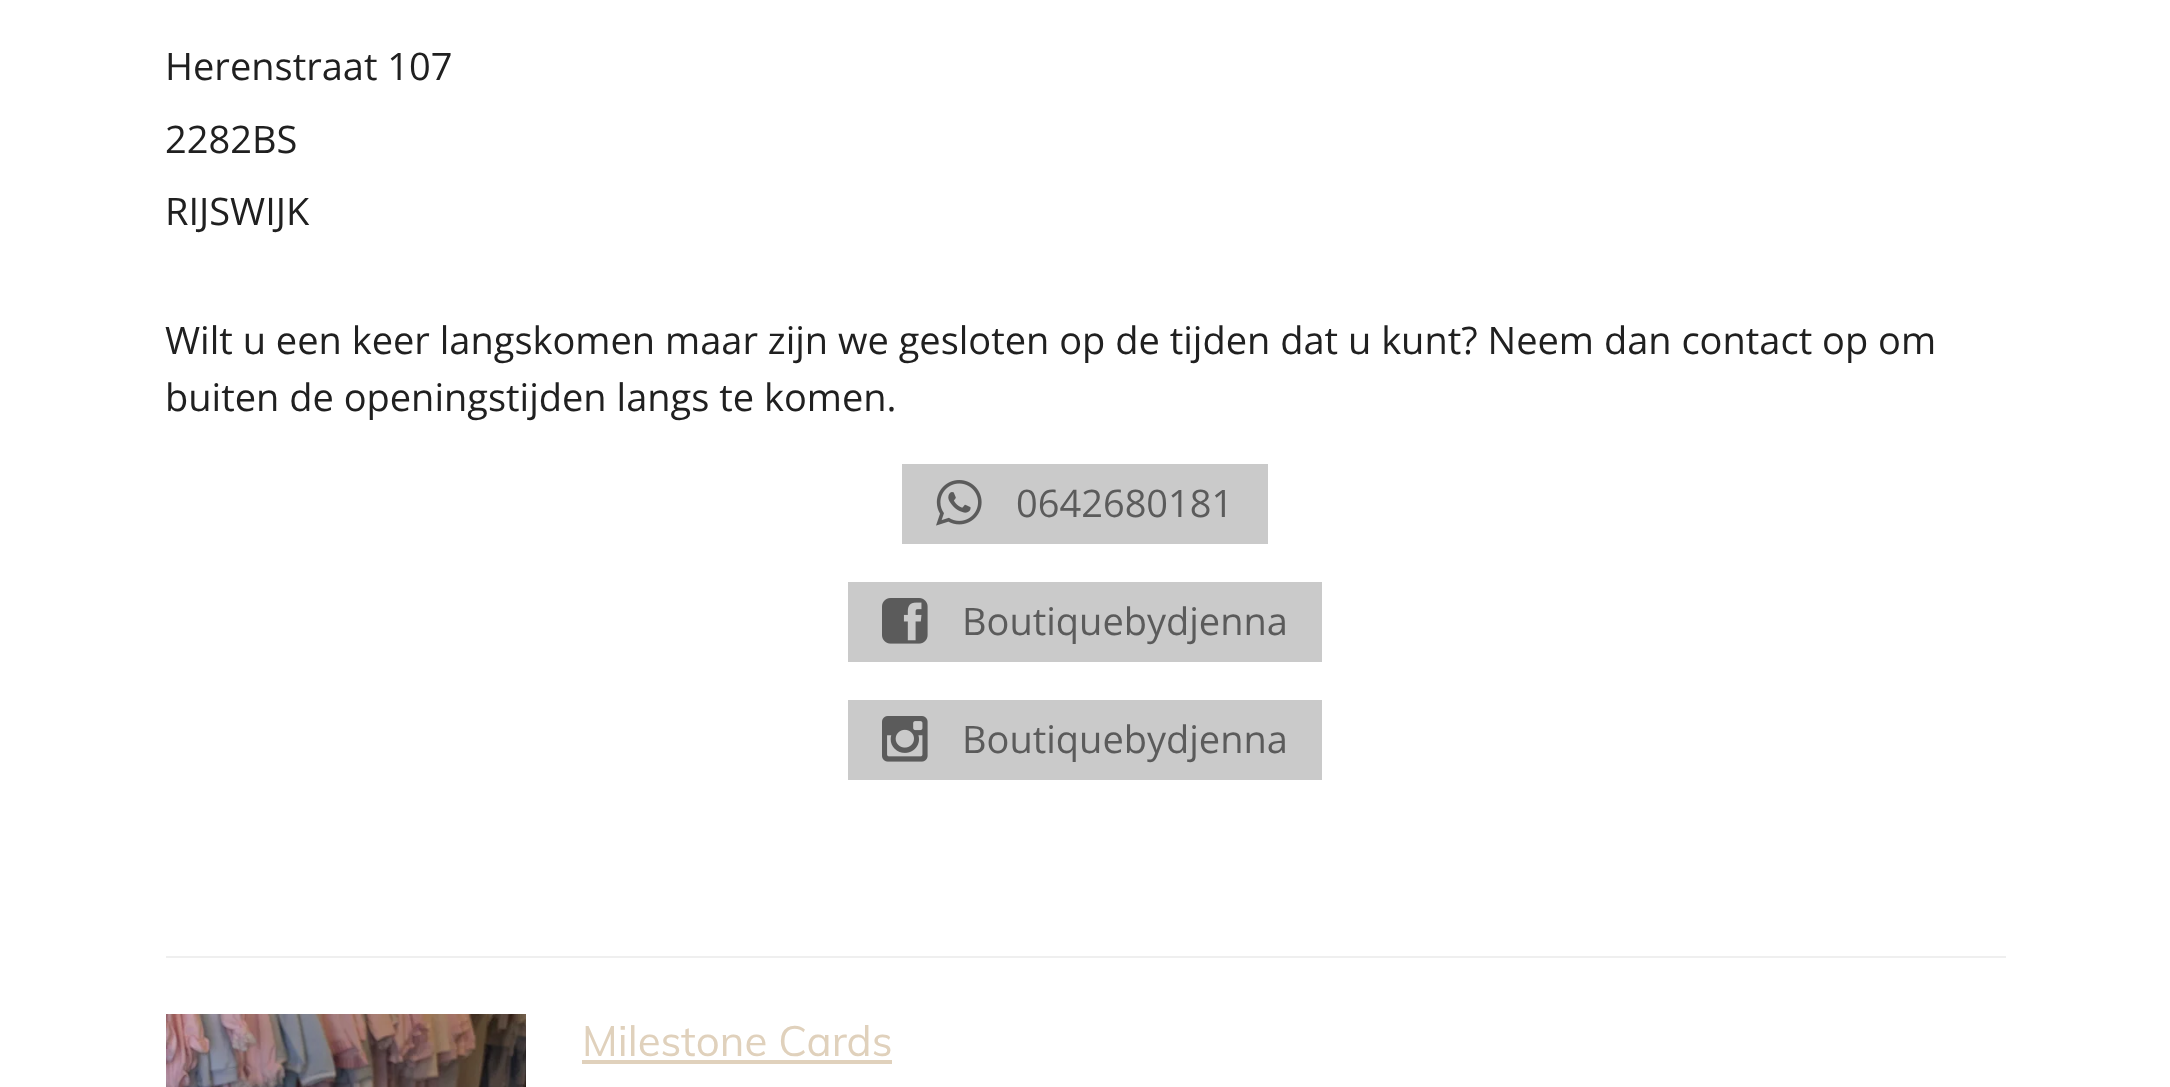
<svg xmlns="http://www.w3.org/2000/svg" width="2170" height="1087">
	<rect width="100%" height="100%" fill="#FFFFFF" />
	<g font-family="Open Sans" font-size="38" fill="#202020">
		<text x="165" y="80">Herenstraat 107</text>
		<text x="165" y="153">2282BS</text>
		<text x="165" y="225">RIJSWIJK</text>
		<text x="165" y="354">Wilt u een keer langskomen maar zijn we gesloten op de tijden dat u kunt? Neem dan contact op om</text>
		<text x="165" y="411">buiten de openingstijden langs te komen.</text>
	</g>
	<rect x="902" y="464" width="366" height="80" fill="#CACACA" />
	<image x="936" y="480" width="46" height="46" href="assets/img1.png" />
	<text x="1016" y="517" font-family="Open Sans" font-size="38" fill="#5B5B5B">0642680181</text>
	<rect x="848" y="582" width="474" height="80" fill="#CACACA" />
	<image x="882" y="598" width="46" height="46" href="assets/img2.png" />
	<text x="962" y="635" font-family="Open Sans" font-size="38" fill="#5B5B5B">Boutiquebydjenna</text>
	<rect x="848" y="700" width="474" height="80" fill="#CACACA" />
	<image x="882" y="716" width="46" height="46" href="assets/img3.png" />
	<text x="962" y="753" font-family="Open Sans" font-size="38" fill="#5B5B5B">Boutiquebydjenna</text>
	<rect x="166" y="956" width="1840" height="2" fill="#EFEFEF" />
	<image x="166" y="1014" width="360" height="73" href="assets/img4.png" />
	<text x="582" y="1056" font-family="Muli" font-size="42" fill="#E0D1BC">Milestone Cards</text>
	<rect x="582" y="1060" width="310" height="4" fill="#E0D1BC" />
</svg>
